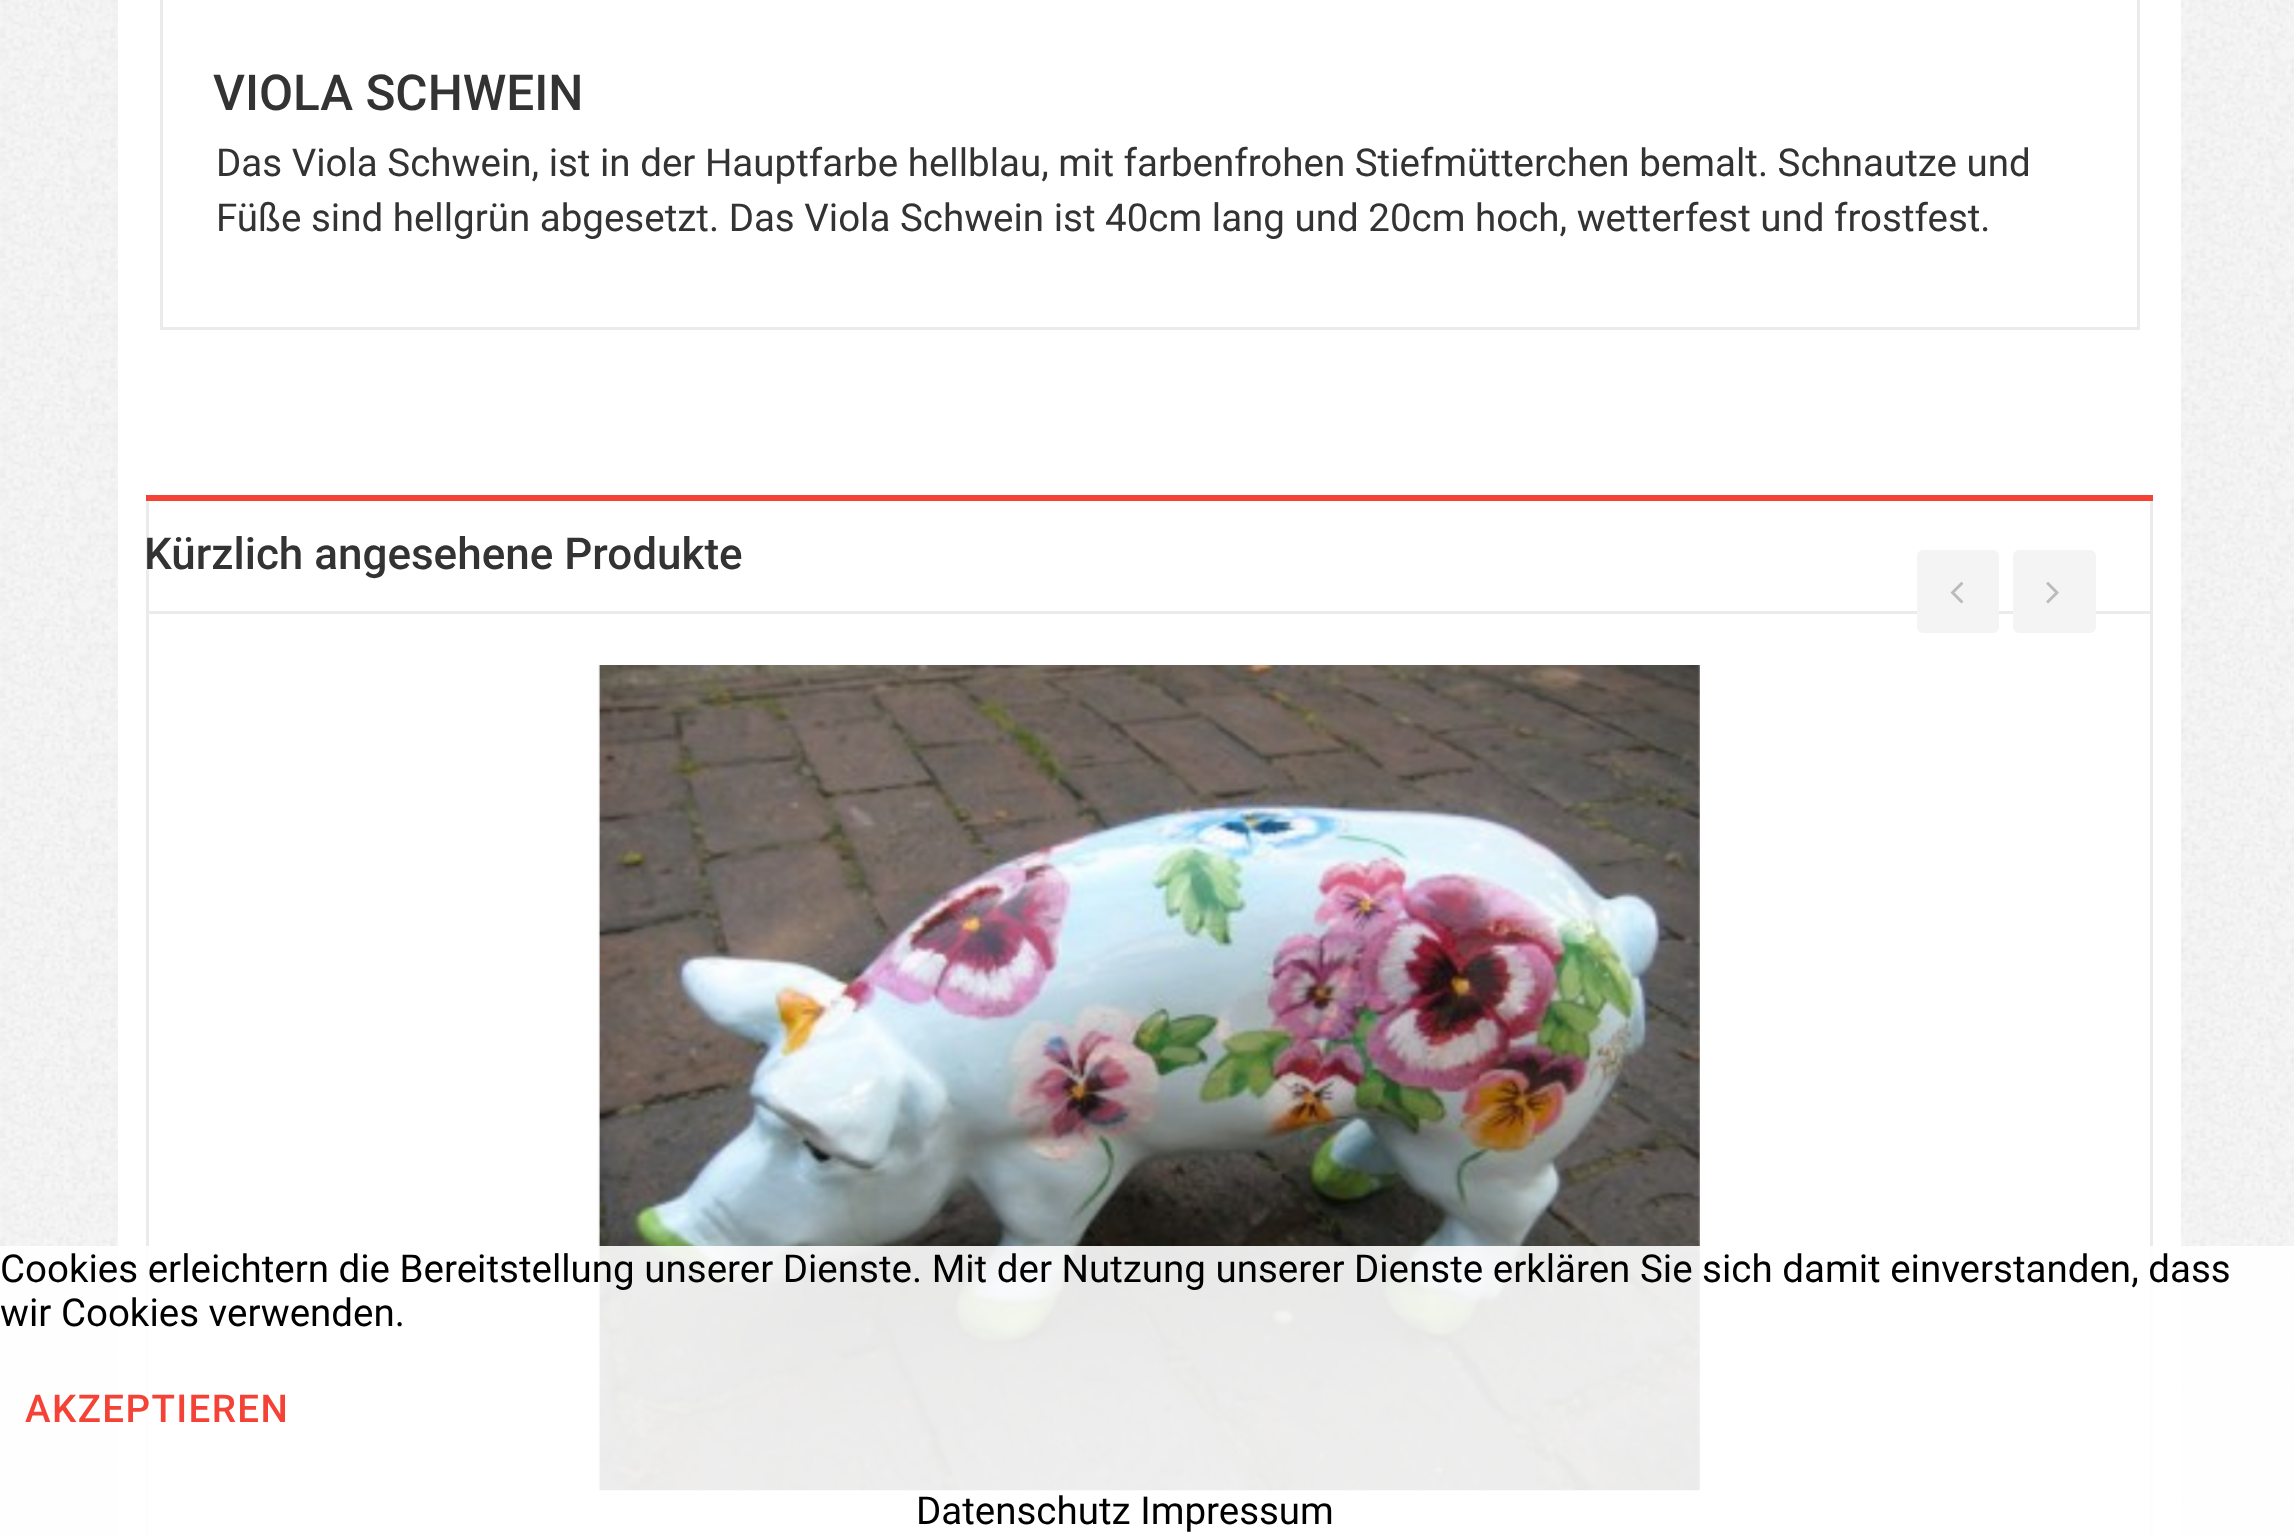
<svg xmlns="http://www.w3.org/2000/svg" width="2294" height="1536">
	<rect width="100%" height="100%" fill="#FFFFFF" />
	<image x="0" y="0" width="2294" height="1536" href="assets/img1.png" />
	<rect x="118" y="0" width="2063" height="1536" fill="#FFFFFF" />
	<rect x="161.5" y="-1.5" width="1977" height="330" fill="none" stroke="#EBEBEB" stroke-width="3" />
	<text x="213" y="110" font-family="Roboto" font-size="49.5" font-weight="500" fill="#333333">VIOLA SCHWEIN</text>
	<g font-family="Roboto" font-size="38.5" fill="#333333">
		<text x="216" y="176">Das Viola Schwein, ist in der Hauptfarbe hellblau, mit farbenfrohen Stiefmütterchen bemalt. Schnautze und</text>
		<text x="216" y="231">Füße sind hellgrün abgesetzt. Das Viola Schwein ist 40cm lang und 20cm hoch, wetterfest und frostfest.</text>
	</g>
	<rect x="147.5" y="496.5" width="2004" height="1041" fill="none" stroke="#EBEBEB" stroke-width="3" />
	<rect x="146" y="495" width="2007" height="6" fill="#F44336" />
	<rect x="146" y="611" width="2007" height="3" fill="#EBEBEB" />
	<text x="144" y="569" font-family="Roboto" font-size="44" font-weight="500" fill="#333333">Kürzlich angesehene Produkte</text>
	<rect x="1917" y="550" width="82" height="83" rx="6" fill="#F4F4F4" />
	<image x="1950" y="582" width="14" height="22" href="assets/img2.png" />
	<rect x="2013" y="550" width="83" height="83" rx="6" fill="#F4F4F4" />
	<image x="2046" y="582" width="13" height="22" href="assets/img3.png" />
	<image x="598" y="665" width="1102" height="826" href="assets/img4.png" />
	<rect x="0" y="1246" width="2294" height="290" fill="#FFFFFF" fill-opacity="0.9" />
	<g font-family="Roboto" font-size="38.5" fill="#000000">
		<text x="0" y="1282">Cookies erleichtern die Bereitstellung unserer Dienste. Mit der Nutzung unserer Dienste erklären Sie sich damit einverstanden, dass</text>
		<text x="0" y="1326">wir Cookies verwenden.</text>
	</g>
	<text x="25" y="1422" font-family="Roboto" font-size="38.5" font-weight="500" letter-spacing="1.4" fill="#F44336">AKZEPTIEREN</text>
	<text x="916" y="1524" font-family="Roboto" font-size="38.5" fill="#000000">Datenschutz Impressum</text>
</svg>
